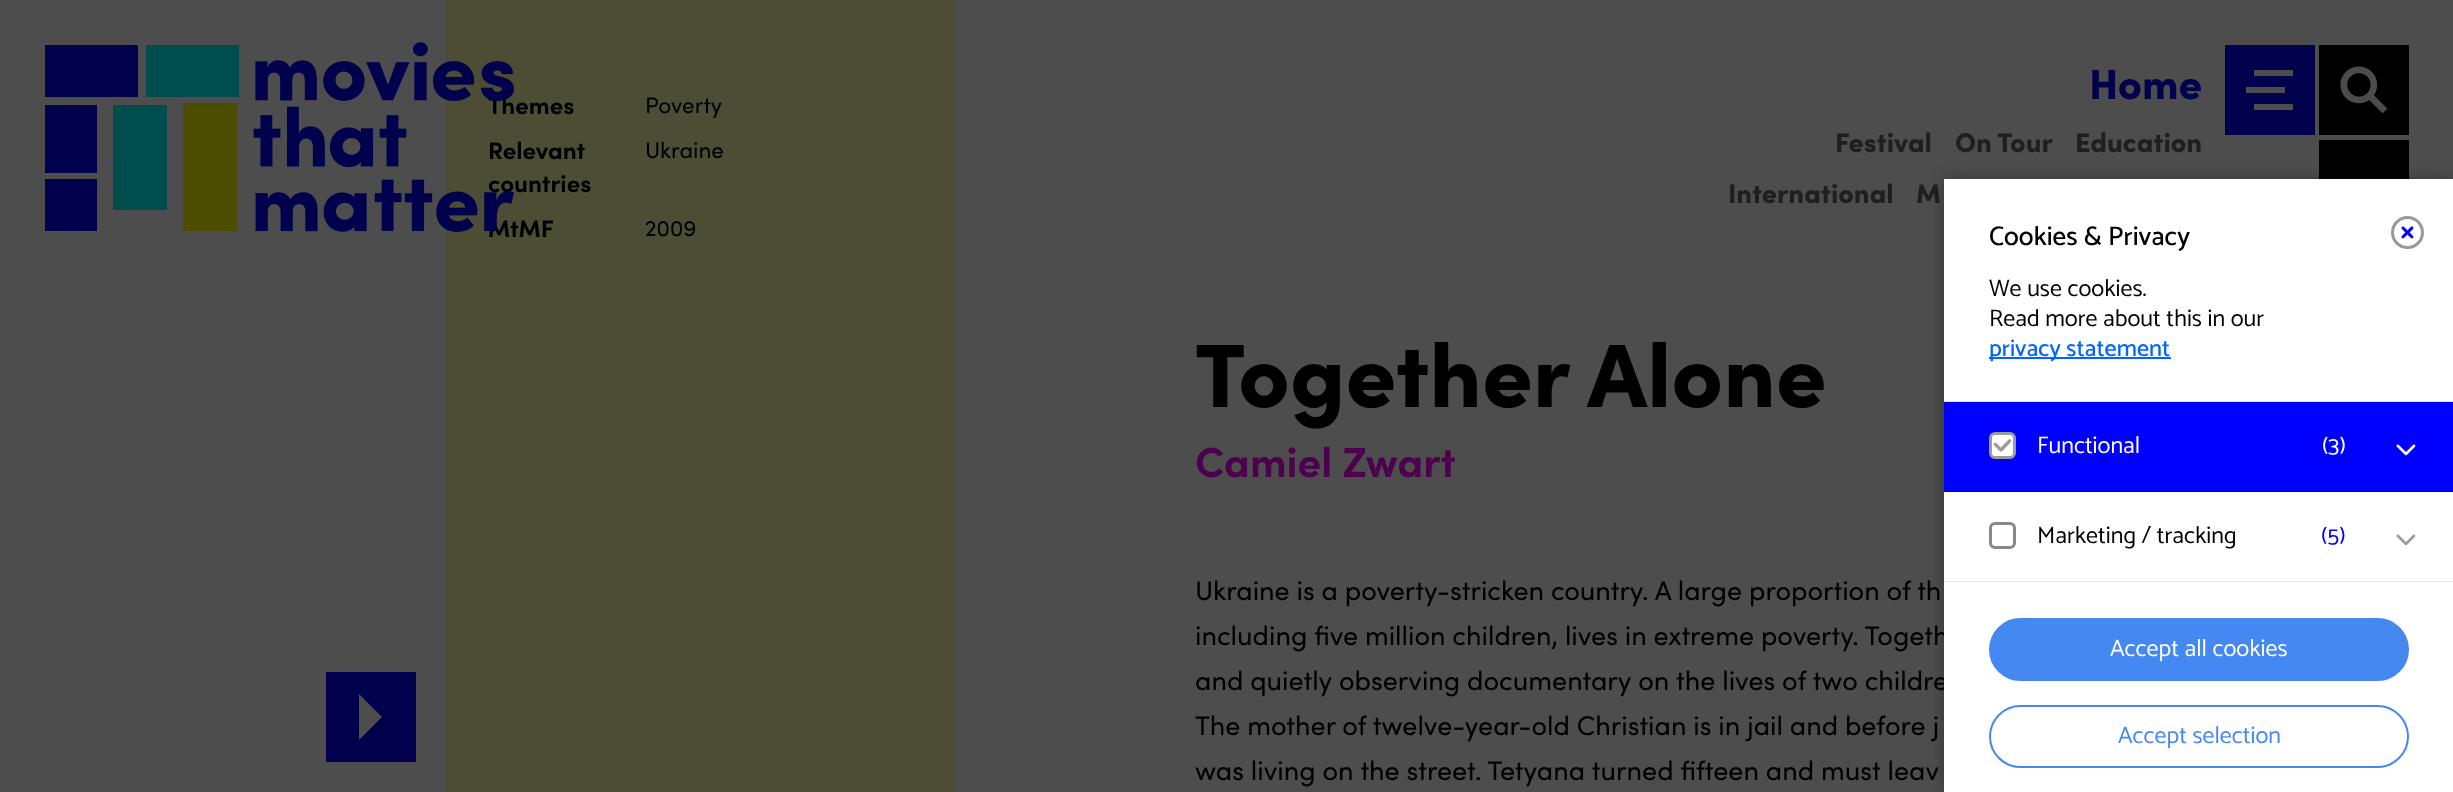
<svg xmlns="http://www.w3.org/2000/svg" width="2453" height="792">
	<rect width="100%" height="100%" fill="#4D4D4D" />
	<rect x="113" y="105" width="54" height="105" fill="#004D4D" />
	<rect x="183" y="103" width="54" height="128" fill="#4D4D00" />
	<rect x="146" y="45" width="93" height="52" fill="#004D4D" />
	<rect x="45" y="45" width="93" height="52" fill="#00004D" />
	<rect x="45" y="105" width="52" height="68" fill="#00004D" />
	<rect x="45" y="179" width="52" height="52" fill="#00004D" />
	<rect x="446" y="0" width="510" height="792" fill="#4D4D36" />
	<g font-family="Sofia" font-size="24" font-weight="700" fill="#000000">
		<text x="488" y="114">Themes</text>
		<text x="488" y="159">Relevant</text>
		<text x="488" y="192">countries</text>
		<text x="488" y="237">MtMF</text>
	</g>
	<image x="253" y="42" width="261" height="190" href="assets/img1.png" />
	<rect x="2225" y="45" width="90" height="90" fill="#00004D" />
	<path d="M2293 70V76H2254V70ZM2285 87H2246V93H2285ZM2254 110H2293V104H2254Z" fill="#4D4D4D" />
	<rect x="2322" y="48" width="84" height="84" fill="none" stroke="#000000" stroke-width="6" />
	<rect x="2325" y="51" width="78" height="78" fill="#000000" />
	<image x="2340" y="66" width="48" height="48" href="assets/img2.png" />
	<rect x="2322" y="143" width="84" height="84" fill="none" stroke="#000000" stroke-width="6" />
	<rect x="2325" y="146" width="78" height="33" fill="#000000" />
	<g font-family="Sofia" font-size="22.5" fill="#000000">
		<text x="645" y="113">Poverty</text>
		<text x="645" y="158">Ukraine</text>
		<text x="645" y="236">2009</text>
	</g>
	<rect x="326" y="672" width="90" height="90" fill="#00004D" />
	<path d="M359 694L382 717L359 740Z" fill="#4D4D4D" />
	<text x="1195" y="407" font-family="Sofia" font-size="90" font-weight="900" fill="#000000">Together Alone</text>
	<text x="1195" y="477" font-family="Sofia" font-size="42" font-weight="700" fill="#4D004D">Camiel Zwart</text>
	<g font-family="Sofia" font-size="27" fill="#000000">
		<text x="1195" y="600">Ukraine is a poverty-stricken country. A large proportion of th</text>
		<text x="1195" y="645">including five million children, lives in extreme poverty. Togeth</text>
		<text x="1195" y="690">and quietly observing documentary on the lives of two childre</text>
		<text x="1195" y="735">The mother of twelve-year-old Christian is in jail and before j</text>
		<text x="1195" y="780">was living on the street. Tetyana turned fifteen and must leav</text>
	</g>
	<text x="2089" y="99" font-family="Sofia" font-size="42" font-weight="900" fill="#00004D">Home</text>
	<g font-family="Sofia" font-size="27" font-weight="900" fill="#1F1F1F">
		<text x="1835" y="152">Festival</text>
		<text x="1955" y="152">On Tour</text>
		<text x="2075" y="152">Education</text>
		<text x="1728" y="203">International</text>
		<text x="1916" y="203">M</text>
	</g>
	<rect x="1944" y="179" width="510" height="613" fill="#000000" fill-opacity="0.3" filter="blur(7.5px)" />
	<rect x="1944" y="179" width="509" height="613" fill="#FFFFFF" />
	<rect x="1944" y="401" width="509" height="1" fill="#E6E6E6" />
	<text x="1989" y="245" font-family="Catamaran" font-size="27" font-weight="500" fill="#000000">Cookies &amp; Privacy</text>
	<circle cx="2407.5" cy="232.5" r="15" fill="none" stroke="#999999" stroke-width="3" />
	<image x="2401" y="226" width="13" height="13" href="assets/img3.png" />
	<g font-family="Catamaran" font-size="24" fill="#000000">
		<text x="1989" y="296">We use cookies.</text>
		<text x="1989" y="326">Read more about this in our</text>
	</g>
	<rect x="1989" y="357" width="182" height="2" fill="#0066FF" />
	<text x="1989" y="356" font-family="Catamaran" font-size="24" font-weight="500" fill="#0066FF">privacy statement</text>
	<rect x="1944" y="402" width="509" height="89" fill="#0000FF" />
	<rect x="1944" y="491" width="509" height="1" fill="#0000CC" />
	<rect x="1990.5" y="433.5" width="24" height="24" rx="4.5" fill="#FFFFFF" stroke="#9B9B9B" stroke-width="3" />
	<image x="1993" y="439" width="19" height="13" href="assets/img4.png" />
	<g font-family="Catamaran" font-size="24" fill="#FFFFFF">
		<text x="2037" y="453">Functional</text>
		<text x="2322" y="453">(3)</text>
	</g>
	<image x="2396" y="444" width="20" height="12" href="assets/img5.png" />
	<rect x="1944" y="581" width="509" height="1" fill="#E6E6E6" />
	<rect x="1990.5" y="523.5" width="24" height="24" rx="4.5" fill="none" stroke="#888888" stroke-width="3" />
	<text x="2037" y="543" font-family="Catamaran" font-size="24" fill="#000000">Marketing / tracking</text>
	<text x="2321" y="543" font-family="Catamaran" font-size="24" fill="#0000FF">(5)</text>
	<image x="2396" y="534" width="20" height="12" href="assets/img6.png" />
	<rect x="1990" y="619" width="418" height="61" rx="30.5" fill="#4688F1" stroke="#4688F1" stroke-width="2" />
	<text x="2110" y="656" font-family="Catamaran" font-size="24" fill="#FFFFFF">Accept all cookies</text>
	<rect x="1990" y="706" width="418" height="61" rx="30.5" fill="none" stroke="#4688F1" stroke-width="2" />
	<text x="2118" y="743" font-family="Catamaran" font-size="24" fill="#4688F1">Accept selection</text>
</svg>
